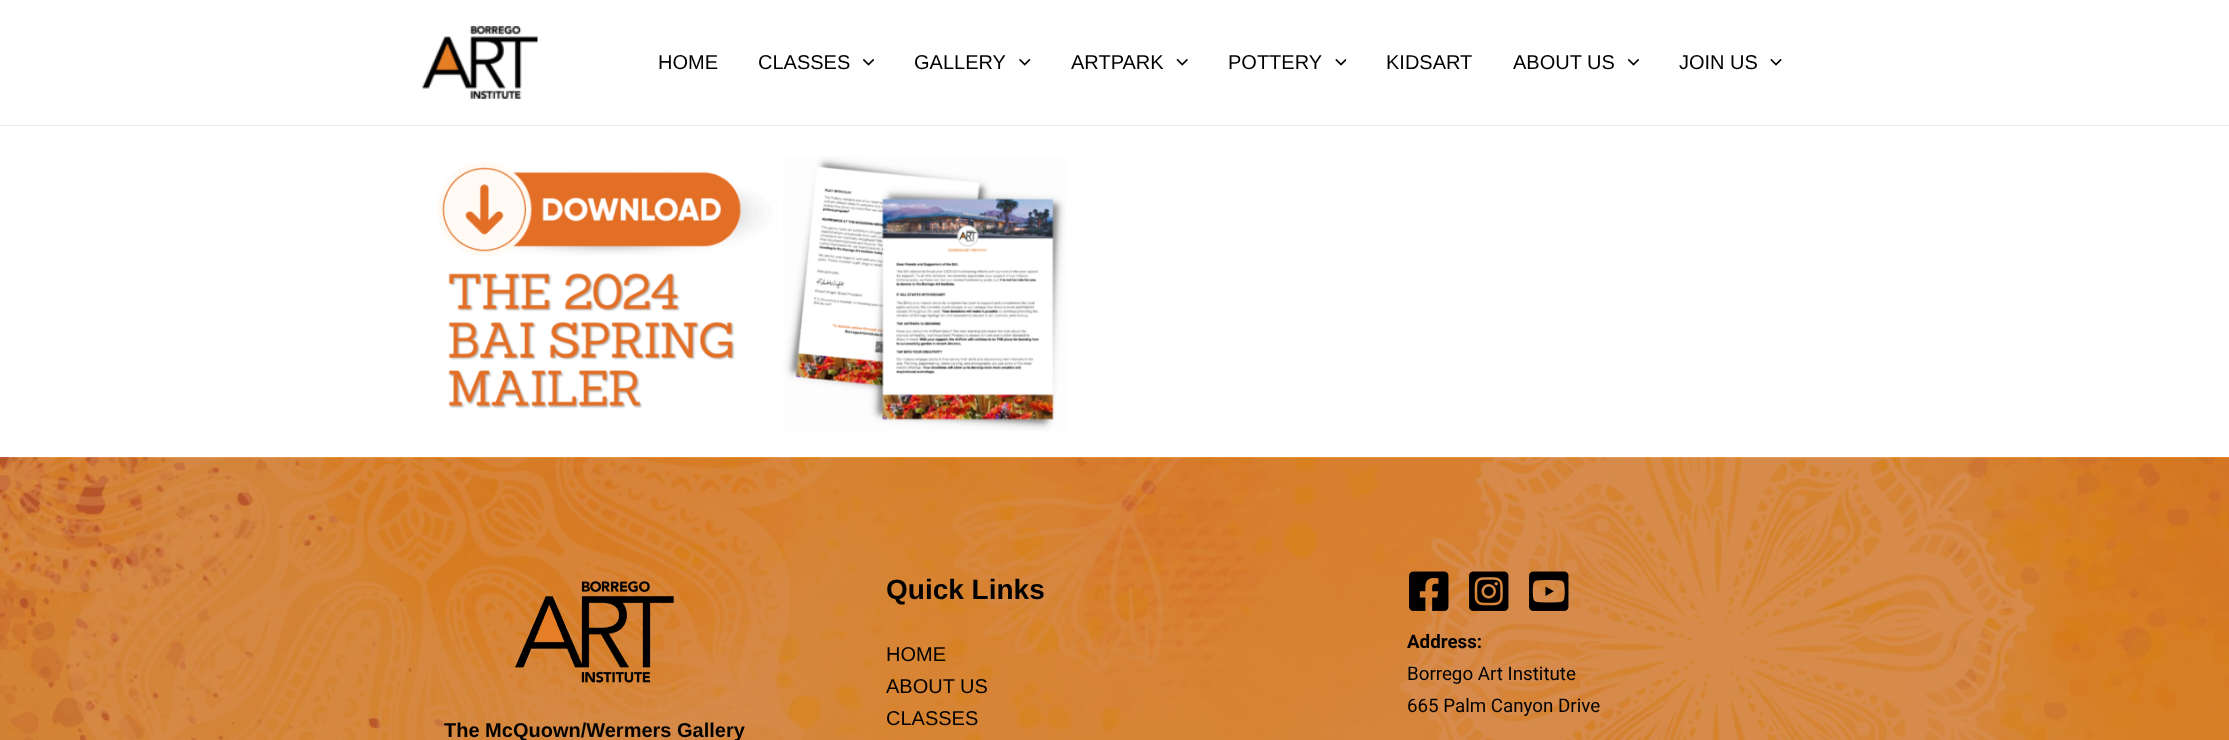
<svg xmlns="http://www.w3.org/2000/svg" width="2229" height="740">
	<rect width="100%" height="100%" fill="#FFFFFF" />
	<rect x="0" y="125" width="2229" height="1" fill="#EAEAEA" />
	<image x="422" y="26" width="116" height="73" href="assets/img1.png" />
	<g font-family="Liberation Sans" font-size="20" fill="#020101">
		<text x="658" y="69">HOME</text>
		<text x="758" y="69">CLASSES</text>
	</g>
	<image x="863" y="58" width="11" height="8" href="assets/img2.png" />
	<text x="914" y="69" font-family="Liberation Sans" font-size="20" fill="#020101">GALLERY</text>
	<image x="1019" y="58" width="12" height="8" href="assets/img3.png" />
	<text x="1071" y="69" font-family="Liberation Sans" font-size="20" fill="#020101">ARTPARK</text>
	<image x="1176" y="58" width="12" height="8" href="assets/img4.png" />
	<text x="1228" y="69" font-family="Liberation Sans" font-size="20" fill="#020101">POTTERY</text>
	<image x="1335" y="58" width="11" height="8" href="assets/img5.png" />
	<g font-family="Liberation Sans" font-size="20" fill="#020101">
		<text x="1386" y="69">KIDSART</text>
		<text x="1513" y="69">ABOUT US</text>
	</g>
	<image x="1628" y="58" width="11" height="8" href="assets/img2.png" />
	<text x="1679" y="69" font-family="Liberation Sans" font-size="20" fill="#020101">JOIN US</text>
	<image x="1770" y="58" width="12" height="8" href="assets/img6.png" />
	<image x="437" y="156" width="629" height="275" href="assets/img7.png" />
	<rect x="0" y="457" width="2229" height="1" fill="#F3892C" />
	<image x="0" y="457" width="2229" height="283" href="assets/img8.png" />
	<text x="886" y="599" font-family="Liberation Sans" font-size="28" font-weight="700" fill="#020101">Quick Links</text>
	<g font-family="Liberation Sans" font-size="20" fill="#020101">
		<text x="886" y="661">HOME</text>
		<text x="886" y="693">ABOUT US</text>
		<text x="886" y="725">CLASSES</text>
	</g>
	<image x="1409" y="571" width="40" height="40" href="assets/img9.png" />
	<image x="1469" y="571" width="40" height="40" href="assets/img10.png" />
	<image x="1529" y="571" width="40" height="40" href="assets/img11.png" />
	<text x="1407" y="648" font-family="Roboto" font-size="18.75" font-weight="700" fill="#020101">Address:</text>
	<g font-family="Roboto" font-size="18.75" fill="#020101">
		<text x="1407" y="680">Borrego Art Institute</text>
		<text x="1407" y="712">665 Palm Canyon Drive</text>
	</g>
	<image x="515" y="581" width="159" height="102" href="assets/img12.png" />
	<text x="444" y="737" font-family="Liberation Sans" font-size="20" font-weight="700" fill="#020101">The McQuown/Wermers Gallery</text>
</svg>
